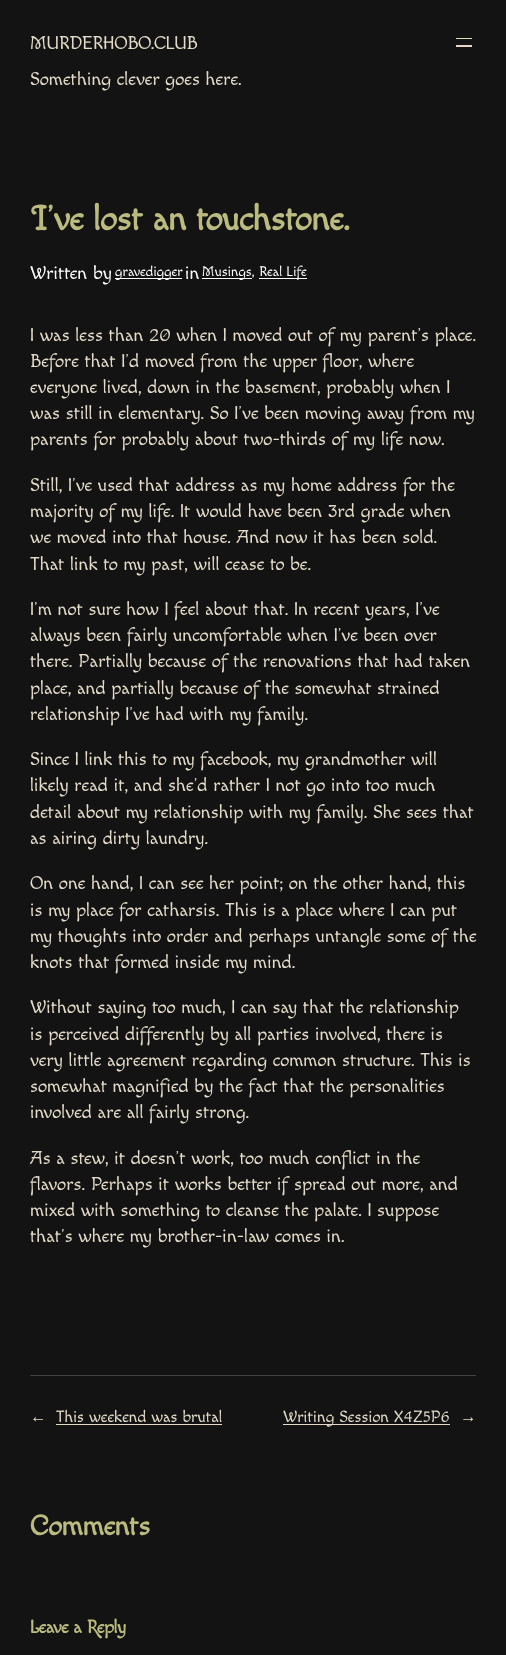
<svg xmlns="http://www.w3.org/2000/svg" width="506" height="1655">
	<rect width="100%" height="100%" fill="#131313" />
	<text x="30" y="49" font-family="Macondo" font-size="18.75" letter-spacing="-0.5" fill="#E3DAC9">MURDERHOBO.CLUB</text>
	<text x="30" y="85" font-family="Macondo" font-size="18.75" fill="#E3DAC9">Something clever goes here.</text>
	<rect x="456" y="38" width="16" height="1" fill="#E3DAC9" />
	<rect x="456" y="45" width="16" height="2" fill="#E3DAC9" />
	<text x="30" y="230" font-family="Macondo Swash Caps" font-size="35.1" font-weight="700" letter-spacing="-0.5" fill="#BBBB7F">I’ve lost an touchstone.</text>
	<text x="30" y="279" font-family="Macondo" font-size="18.75" fill="#FFFFFF">Written by</text>
	<rect x="115" y="278" width="67" height="1" fill="#FFFFFF" />
	<text x="115" y="276" font-family="Macondo" font-size="14" fill="#FFFFFF">gravedigger</text>
	<text x="185" y="279" font-family="Macondo" font-size="18.75" fill="#FFFFFF">in</text>
	<rect x="202" y="278" width="50" height="1" fill="#FFFFFF" />
	<text x="202" y="276" font-family="Macondo" font-size="14" fill="#FFFFFF">Musings,</text>
	<rect x="259" y="278" width="48" height="1" fill="#FFFFFF" />
	<text x="259" y="276" font-family="Macondo" font-size="14" fill="#FFFFFF">Real Life</text>
	<g font-family="Macondo" font-size="18.75" fill="#E3DAC9">
		<text x="30" y="341">I was less than 20 when I moved out of my parent’s place.</text>
		<text x="30" y="367">Before that I’d moved from the upper floor, where</text>
		<text x="30" y="393">everyone lived, down in the basement, probably when I</text>
		<text x="30" y="419">was still in elementary. So I’ve been moving away from my</text>
		<text x="30" y="445">parents for probably about two-thirds of my life now.</text>
		<text x="30" y="491">Still, I’ve used that address as my home address for the</text>
		<text x="30" y="517">majority of my life. It would have been 3rd grade when</text>
		<text x="30" y="543">we moved into that house. And now it has been sold.</text>
		<text x="30" y="570">That link to my past, will cease to be.</text>
		<text x="30" y="615">I’m not sure how I feel about that. In recent years, I’ve</text>
		<text x="30" y="641">always been fairly uncomfortable when I’ve been over</text>
		<text x="30" y="667">there. Partially because of the renovations that had taken</text>
		<text x="30" y="694">place, and partially because of the somewhat strained</text>
		<text x="30" y="720">relationship I’ve had with my family.</text>
		<text x="30" y="765">Since I link this to my facebook, my grandmother will</text>
		<text x="30" y="791">likely read it, and she’d rather I not go into too much</text>
		<text x="30" y="818">detail about my relationship with my family. She sees that</text>
		<text x="30" y="844">as airing dirty laundry.</text>
		<text x="30" y="889">On one hand, I can see her point; on the other hand, this</text>
		<text x="30" y="916">is my place for catharsis. This is a place where I can put</text>
		<text x="30" y="942">my thoughts into order and perhaps untangle some of the</text>
		<text x="30" y="968">knots that formed inside my mind.</text>
		<text x="30" y="1013">Without saying too much, I can say that the relationship</text>
		<text x="30" y="1040">is perceived differently by all parties involved, there is</text>
		<text x="30" y="1066">very little agreement regarding common structure. This is</text>
		<text x="30" y="1092">somewhat magnified by the fact that the personalities</text>
		<text x="30" y="1118">involved are all fairly strong.</text>
		<text x="30" y="1164">As a stew, it doesn’t work, too much conflict in the</text>
		<text x="30" y="1190">flavors. Perhaps it works better if spread out more, and</text>
		<text x="30" y="1216">mixed with something to cleanse the palate. I suppose</text>
		<text x="30" y="1242">that’s where my brother-in-law comes in.</text>
	</g>
	<rect x="30" y="1375" width="446" height="1" fill="#424242" />
	<text x="30" y="1422" font-family="Liberation Serif" font-size="16.4" fill="#E3DAC9">←</text>
	<text x="56" y="1422" font-family="Macondo" font-size="16.4" fill="#E3DAC9">This weekend was brutal</text>
	<rect x="56" y="1424" width="166" height="1" fill="#E3DAC9" />
	<rect x="283" y="1424" width="167" height="1" fill="#E3DAC9" />
	<text x="283" y="1422" font-family="Macondo" font-size="16.4" fill="#E3DAC9">Writing Session X4Z5P6</text>
	<text x="460" y="1422" font-family="Liberation Serif" font-size="16.4" fill="#E3DAC9">→</text>
	<text x="30" y="1535" font-family="Macondo Swash Caps" font-size="28.5" font-weight="700" letter-spacing="-0.5" fill="#BBBB7F">Comments</text>
	<text x="30" y="1633" font-family="Macondo Swash Caps" font-size="18.75" font-weight="700" letter-spacing="-0.5" fill="#BBBB7F">Leave a Reply</text>
</svg>
